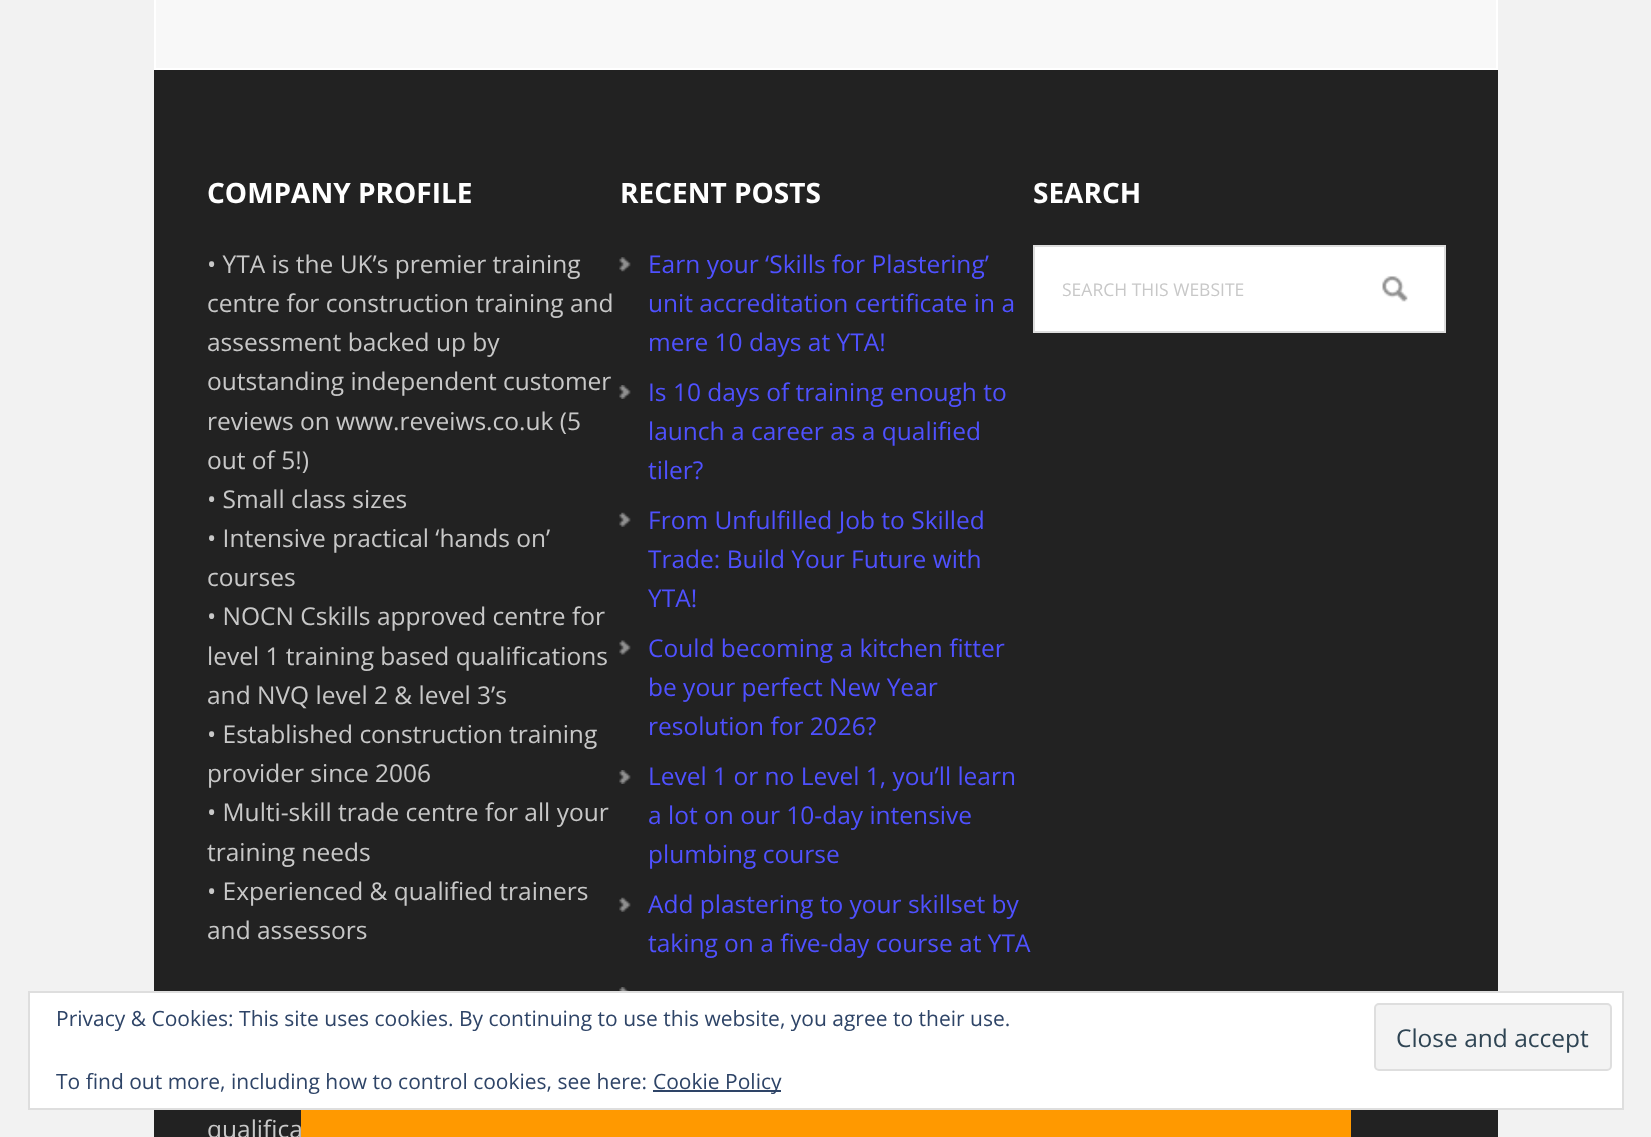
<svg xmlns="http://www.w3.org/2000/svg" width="1651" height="1137">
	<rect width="100%" height="100%" fill="#F2F2F2" />
	<rect x="155" y="-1" width="1342" height="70" fill="#F8F8F8" stroke="#FFFFFF" stroke-width="2" />
	<rect x="154" y="70" width="1344" height="1067" fill="#222222" />
	<text x="207" y="203" font-family="Open Sans" font-size="28" font-weight="700" fill="#FFFFFF">COMPANY PROFILE</text>
	<g font-family="Open Sans" font-size="24.5" fill="#C8C8C8">
		<text x="207" y="273">• YTA is the UK’s premier training</text>
		<text x="207" y="312">centre for construction training and</text>
		<text x="207" y="351">assessment backed up by</text>
		<text x="207" y="390">outstanding independent customer</text>
		<text x="207" y="430">reviews on www.reveiws.co.uk (5</text>
		<text x="207" y="469">out of 5!)</text>
		<text x="207" y="508">• Small class sizes</text>
		<text x="207" y="547">• Intensive practical ‘hands on’</text>
		<text x="207" y="586">courses</text>
		<text x="207" y="625">• NOCN Cskills approved centre for</text>
		<text x="207" y="665">level 1 training based qualifications</text>
		<text x="207" y="704">and NVQ level 2 &amp; level 3’s</text>
		<text x="207" y="743">• Established construction training</text>
		<text x="207" y="782">provider since 2006</text>
		<text x="207" y="821">• Multi-skill trade centre for all your</text>
		<text x="207" y="861">training needs</text>
		<text x="207" y="900">• Experienced &amp; qualified trainers</text>
		<text x="207" y="939">and assessors</text>
		<text x="207" y="1138">qualifica</text>
	</g>
	<text x="620" y="203" font-family="Open Sans" font-size="28" font-weight="700" fill="#FFFFFF">RECENT POSTS</text>
	<image x="619" y="257" width="12" height="15" href="assets/img1.png" />
	<g font-family="Open Sans" font-size="24.5" fill="#4F51FF">
		<text x="648" y="273">Earn your ‘Skills for Plastering’</text>
		<text x="648" y="312">unit accreditation certificate in a</text>
		<text x="648" y="351">mere 10 days at YTA!</text>
	</g>
	<image x="619" y="385" width="12" height="14" href="assets/img2.png" />
	<g font-family="Open Sans" font-size="24.5" fill="#4F51FF">
		<text x="648" y="401">Is 10 days of training enough to</text>
		<text x="648" y="440">launch a career as a qualified</text>
		<text x="648" y="479">tiler?</text>
	</g>
	<image x="619" y="512" width="12" height="15" href="assets/img3.png" />
	<g font-family="Open Sans" font-size="24.5" fill="#4F51FF">
		<text x="648" y="529">From Unfulfilled Job to Skilled</text>
		<text x="648" y="568">Trade: Build Your Future with</text>
		<text x="648" y="607">YTA!</text>
	</g>
	<image x="619" y="640" width="12" height="15" href="assets/img4.png" />
	<g font-family="Open Sans" font-size="24.5" fill="#4F51FF">
		<text x="648" y="657">Could becoming a kitchen fitter</text>
		<text x="648" y="696">be your perfect New Year</text>
		<text x="648" y="735">resolution for 2026?</text>
	</g>
	<image x="619" y="770" width="12" height="14" href="assets/img2.png" />
	<g font-family="Open Sans" font-size="24.5" fill="#4F51FF">
		<text x="648" y="785">Level 1 or no Level 1, you’ll learn</text>
		<text x="648" y="824">a lot on our 10-day intensive</text>
		<text x="648" y="863">plumbing course</text>
	</g>
	<image x="619" y="897" width="12" height="15" href="assets/img3.png" />
	<g font-family="Open Sans" font-size="24.5" fill="#4F51FF">
		<text x="648" y="913">Add plastering to your skillset by</text>
		<text x="648" y="952">taking on a five-day course at YTA</text>
	</g>
	<image x="619" y="987" width="10" height="4" href="assets/img5.png" />
	<text x="1033" y="203" font-family="Open Sans" font-size="28" font-weight="700" fill="#FFFFFF">SEARCH</text>
	<rect x="1035" y="247" width="409" height="84" fill="#FFFFFF" />
	<image x="1382" y="276" width="26" height="26" href="assets/img6.png" />
	<rect x="1034" y="246" width="411" height="86" fill="none" stroke="#DDDDDD" stroke-width="2" />
	<text x="1062" y="296" font-family="Open Sans" font-size="17.5" fill="#C8C8C8">SEARCH THIS WEBSITE</text>
	<rect x="29" y="992" width="1594" height="117" fill="#FFFFFF" stroke="#DEDEDE" stroke-width="2" />
	<text x="56" y="1026" font-family="Open Sans" font-size="21" fill="#2E4467">Privacy &amp; Cookies: This site uses cookies. By continuing to use this website, you agree to their use.</text>
	<rect x="1375" y="1004" width="236" height="66" rx="4" fill="#F3F3F3" stroke="#DEDEDE" stroke-width="2" />
	<text x="1396" y="1047" font-family="Open Sans" font-size="24.5" fill="#2E4453">Close and accept</text>
	<text x="56" y="1089" font-family="Open Sans" font-size="21" fill="#2E4467">To find out more, including how to control cookies, see here:</text>
	<rect x="653" y="1090" width="128" height="2" fill="#2E4467" />
	<text x="653" y="1089" font-family="Open Sans" font-size="21" fill="#2E4467">Cookie Policy</text>
	<rect x="301" y="1110" width="1050" height="27" fill="#FF9900" />
</svg>
